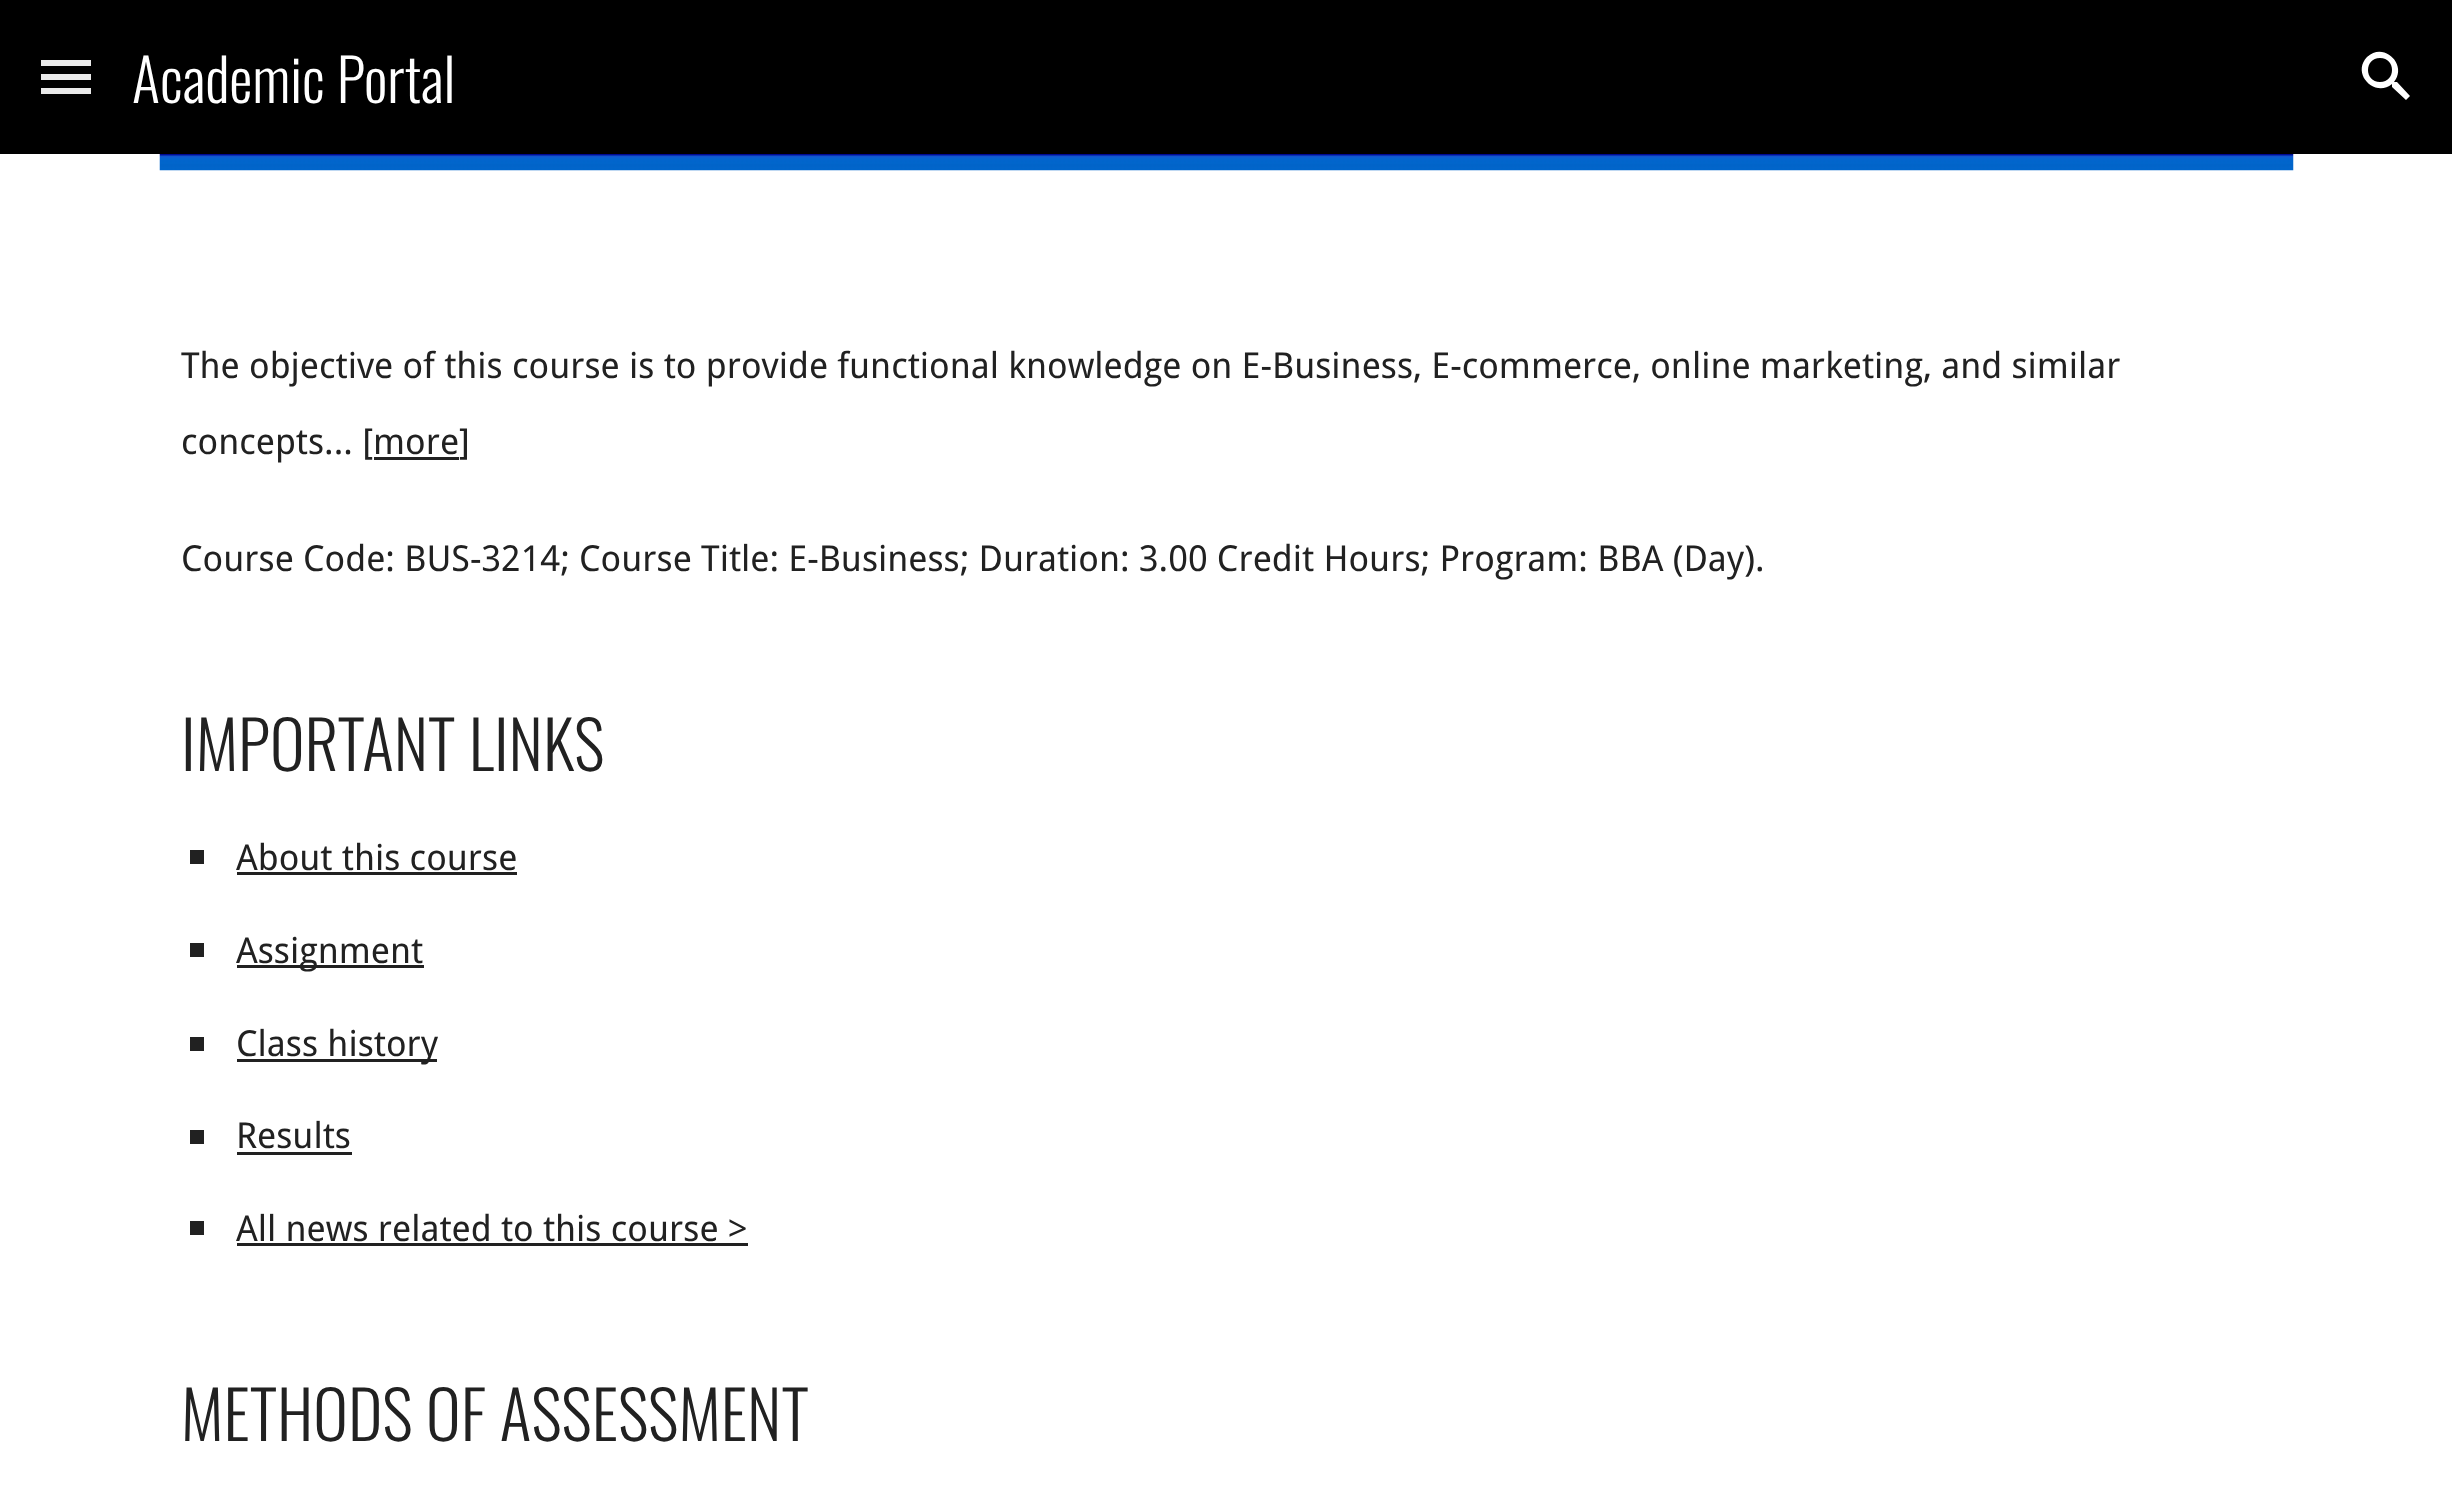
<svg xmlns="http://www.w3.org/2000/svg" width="2452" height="1507">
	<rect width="100%" height="100%" fill="#FFFFFF" />
	<rect x="0" y="0" width="2452" height="154" fill="#000000" />
	<rect x="41" y="60" width="50" height="6" fill="#EAEAEA" />
	<rect x="41" y="74" width="50" height="6" fill="#EAEAEA" />
	<rect x="41" y="88" width="50" height="6" fill="#EAEAEA" />
	<text x="132" y="103" font-family="Oswald" font-size="58.5" font-weight="300" fill="#FFFFFF">Academic Portal</text>
	<path d="M2397 82H2394C2408 65 2384 41 2367 57C2351 74 2375 98 2392 84V87L2406 100L2410 96ZM2380 82C2364 82 2364 58 2380 58C2396 58 2396 82 2380 82Z" fill="#FFFFFF" />
	<image x="159" y="154" width="2135" height="17" href="assets/img1.png" />
	<g font-family="Droid Sans" font-size="35.75" fill="#212121">
		<text x="181" y="378">The objective of this course is to provide functional knowledge on E-Business, E-commerce, online marketing, and similar</text>
		<text x="181" y="454">concepts... [more]</text>
	</g>
	<rect x="374" y="457" width="85" height="3" fill="#212121" />
	<text x="181" y="571" font-family="Droid Sans" font-size="35.75" fill="#212121">Course Code: BUS-3214; Course Title: E-Business; Duration: 3.00 Credit Hours; Program: BBA (Day).</text>
	<text x="181" y="771" font-family="Oswald" font-size="66" font-weight="300" fill="#212121">IMPORTANT LINKS</text>
	<rect x="190" y="850" width="14" height="14" fill="#212121" />
	<text x="236" y="870" font-family="Droid Sans" font-size="35.75" fill="#212121">About this course</text>
	<rect x="237" y="872" width="280" height="3" fill="#212121" />
	<rect x="190" y="943" width="14" height="14" fill="#212121" />
	<rect x="237" y="965" width="187" height="3" fill="#212121" />
	<text x="236" y="963" font-family="Droid Sans" font-size="35.75" fill="#212121">Assignment</text>
	<rect x="190" y="1037" width="14" height="14" fill="#212121" />
	<rect x="237" y="1059" width="200" height="3" fill="#212121" />
	<text x="236" y="1056" font-family="Droid Sans" font-size="35.75" fill="#212121">Class history</text>
	<rect x="190" y="1130" width="14" height="14" fill="#212121" />
	<text x="236" y="1148" font-family="Droid Sans" font-size="35.75" fill="#212121">Results</text>
	<rect x="237" y="1152" width="115" height="3" fill="#212121" />
	<rect x="190" y="1221" width="14" height="14" fill="#212121" />
	<text x="236" y="1241" font-family="Droid Sans" font-size="35.75" fill="#212121">All news related to this course &gt;</text>
	<rect x="237" y="1243" width="511" height="3" fill="#212121" />
	<text x="181" y="1441" font-family="Oswald" font-size="66" font-weight="300" fill="#212121">METHODS OF ASSESSMENT</text>
</svg>
